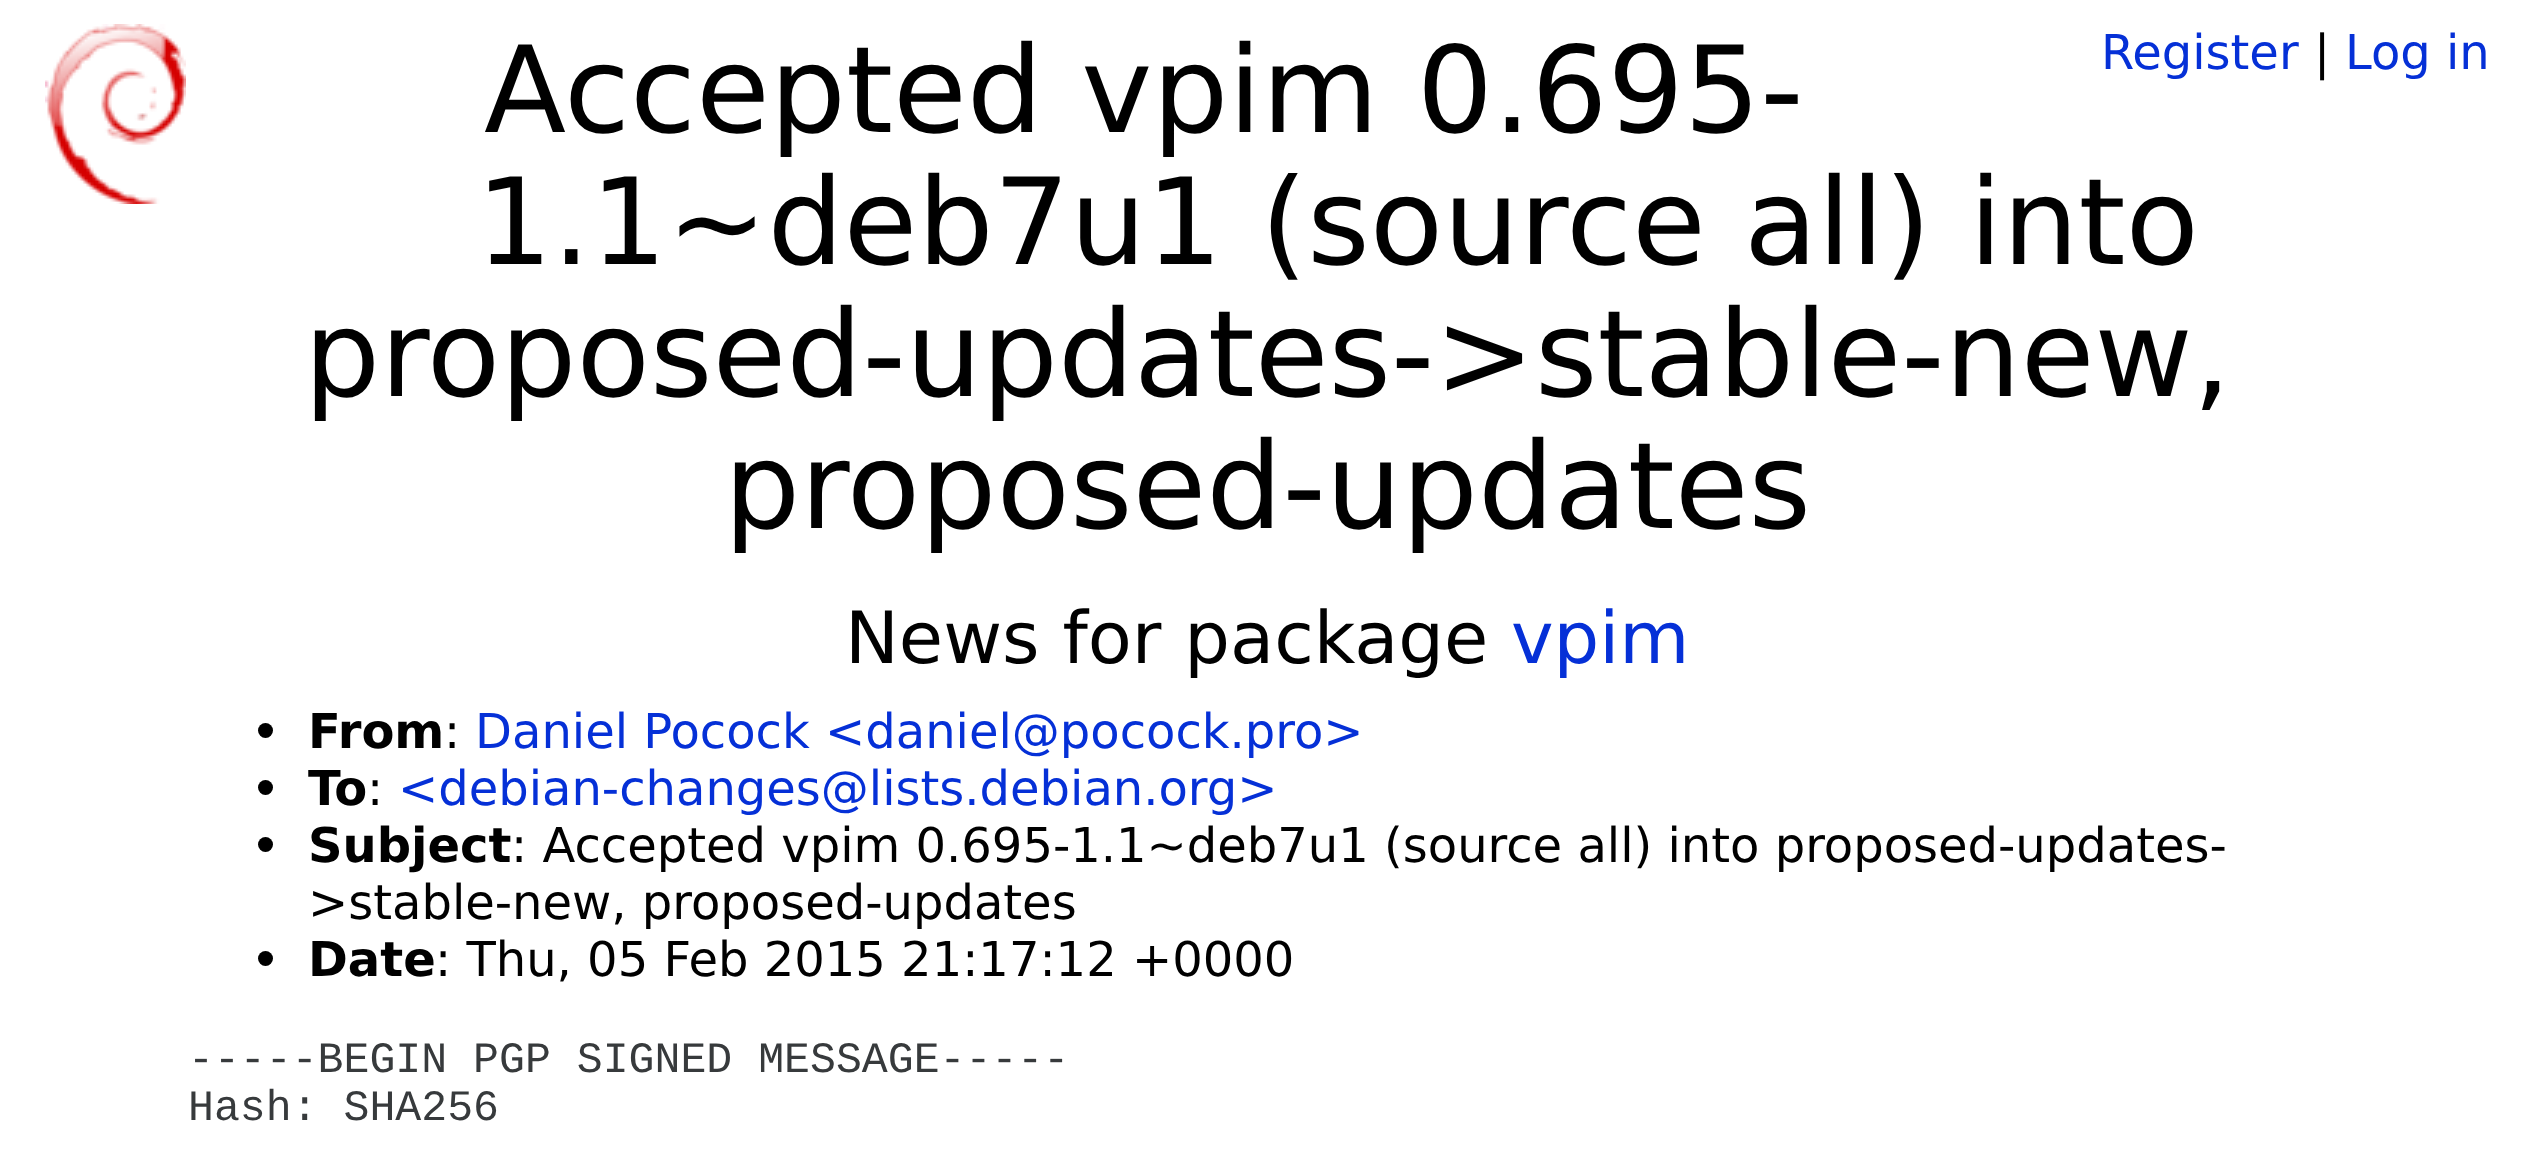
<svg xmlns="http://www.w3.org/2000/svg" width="2533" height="1162">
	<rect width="100%" height="100%" fill="#FFFFFF" />
	<image x="45" y="24" width="141" height="180" href="assets/img1.png" />
	<g font-family="DejaVu Sans" font-size="120" fill="#000000">
		<text x="484" y="132">Accepted vpim 0.695-</text>
		<text x="476" y="264">1.1~deb7u1 (source all) into</text>
		<text x="304" y="396">proposed-updates-&gt;stable-new,</text>
		<text x="724" y="528">proposed-updates</text>
	</g>
	<text x="2101" y="69" font-family="DejaVu Sans" font-size="48" fill="#0530D7">Register</text>
	<text x="2314" y="69" font-family="DejaVu Sans" font-size="48" fill="#000000">|</text>
	<text x="2345" y="69" font-family="DejaVu Sans" font-size="48" fill="#0530D7">Log in</text>
	<text x="845" y="663" font-family="DejaVu Sans" font-size="72" fill="#000000">News for package</text>
	<text x="1511" y="663" font-family="DejaVu Sans" font-size="72" fill="#0530D7">vpim</text>
	<circle cx="265.5" cy="730.5" r="7.5" fill="#000000" />
	<text x="308" y="748" font-family="DejaVu Sans" font-size="48" font-weight="700" fill="#000000">From</text>
	<text x="444" y="748" font-family="DejaVu Sans" font-size="48" fill="#000000">:</text>
	<text x="475" y="748" font-family="DejaVu Sans" font-size="48" fill="#0530D7">Daniel Pocock &lt;daniel@pocock.pro&gt;</text>
	<circle cx="265.5" cy="787.5" r="7.5" fill="#000000" />
	<text x="308" y="805" font-family="DejaVu Sans" font-size="48" font-weight="700" fill="#000000">To</text>
	<text x="367" y="805" font-family="DejaVu Sans" font-size="48" fill="#000000">:</text>
	<text x="398" y="805" font-family="DejaVu Sans" font-size="48" fill="#0530D7">&lt;debian-changes@lists.debian.org&gt;</text>
	<circle cx="265.5" cy="844.5" r="7.5" fill="#000000" />
	<text x="308" y="862" font-family="DejaVu Sans" font-size="48" font-weight="700" fill="#000000">Subject</text>
	<g font-family="DejaVu Sans" font-size="48" fill="#000000">
		<text x="511" y="862">: Accepted vpim 0.695-1.1~deb7u1 (source all) into proposed-updates-</text>
		<text x="308" y="919">&gt;stable-new, proposed-updates</text>
	</g>
	<circle cx="265.5" cy="958.5" r="7.5" fill="#000000" />
	<text x="308" y="976" font-family="DejaVu Sans" font-size="48" font-weight="700" fill="#000000">Date</text>
	<text x="435" y="976" font-family="DejaVu Sans" font-size="48" fill="#000000">: Thu, 05 Feb 2015 21:17:12 +0000</text>
	<g font-family="Liberation Mono" font-size="43.2" fill="#373A3C">
		<text x="188" y="1072">-----BEGIN PGP SIGNED MESSAGE-----</text>
		<text x="188" y="1120">Hash: SHA256</text>
	</g>
</svg>
